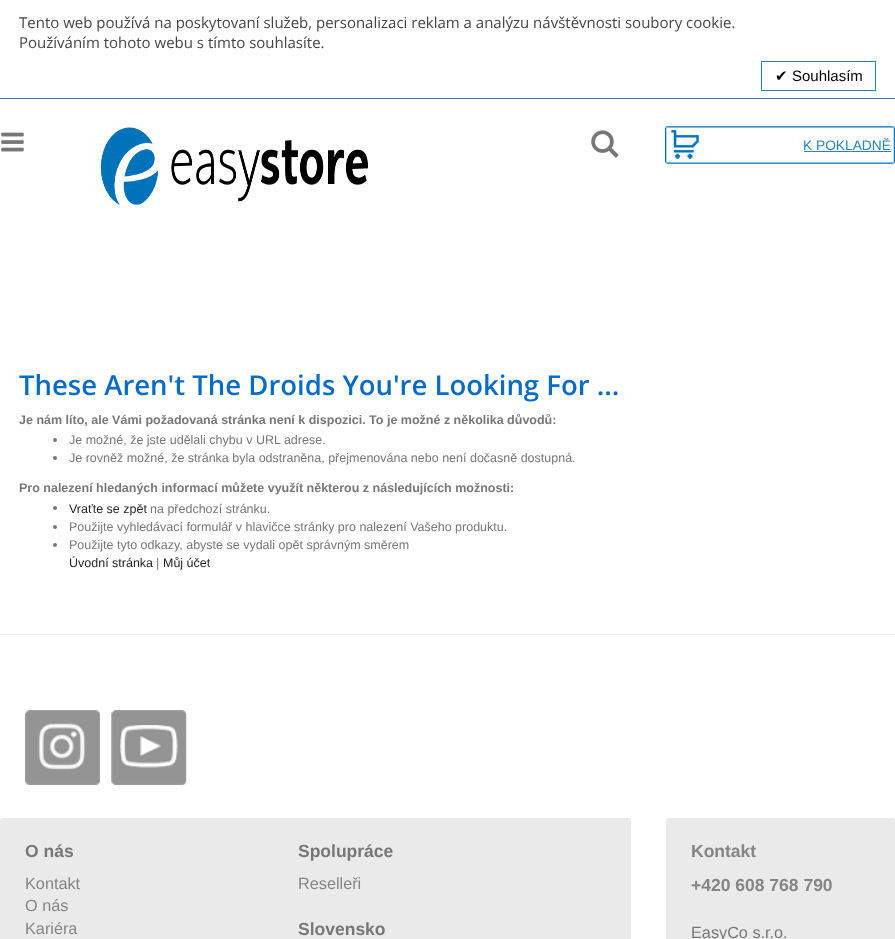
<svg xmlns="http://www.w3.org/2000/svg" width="895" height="939">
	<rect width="100%" height="100%" fill="#FFFFFF" />
	<rect x="0" y="98" width="895" height="1" fill="#2C81B7" />
	<g font-family="Open Sans" font-size="15" fill="#444444">
		<text x="19" y="28">Tento web používá na poskytovaní služeb, personalizaci reklam a analýzu návštěvnosti soubory cookie.</text>
		<text x="19" y="48">Používáním tohoto webu s tímto souhlasíte.</text>
	</g>
	<rect x="761.5" y="61.5" width="114" height="29" fill="none" stroke="#2C81B7" />
	<text x="775" y="81" font-family="DejaVu Sans" font-size="15" fill="#000000">✔</text>
	<text x="792" y="81" font-family="Liberation Sans" font-size="15" fill="#000000">Souhlasím</text>
	<image x="101" y="127" width="267" height="78" href="assets/img1.png" />
	<image x="1" y="132" width="23" height="20" href="assets/img2.png" />
	<image x="591" y="130" width="28" height="28" href="assets/img3.png" />
	<image x="665" y="126" width="230" height="38" href="assets/img4.png" />
	<text x="803" y="150" font-family="Liberation Sans" font-size="13.75" fill="#2C81B7">K POKLADNĚ</text>
	<rect x="804" y="151" width="87" height="1" fill="#2C81B7" />
	<text x="19" y="395" font-family="Open Sans" font-size="27.5" font-weight="600" fill="#066CC3">These Aren't The Droids You're Looking For ...</text>
	<text x="19" y="424" font-family="Liberation Sans" font-size="12.5" font-weight="700" fill="#777777">Je nám líto, ale Vámi požadovaná stránka není k dispozici. To je možné z několika důvodů:</text>
	<circle cx="55" cy="440" r="2" fill="#777777" />
	<text x="69" y="444" font-family="Liberation Sans" font-size="12.5" fill="#777777">Je možné, že jste udělali chybu v URL adrese.</text>
	<circle cx="55" cy="458" r="2" fill="#777777" />
	<text x="69" y="462" font-family="Liberation Sans" font-size="12.5" fill="#777777">Je rovněž možné, že stránka byla odstraněna, přejmenována nebo není dočasně dostupná.</text>
	<text x="19" y="492" font-family="Liberation Sans" font-size="12.5" font-weight="700" fill="#777777">Pro nalezení hledaných informací můžete využít některou z následujících možnosti:</text>
	<circle cx="55" cy="508" r="2" fill="#777777" />
	<text x="69" y="513" font-family="Liberation Sans" font-size="12.5" fill="#222529">Vraťte se zpět</text>
	<text x="150" y="513" font-family="Liberation Sans" font-size="12.5" fill="#777777">na předchozí stránku.</text>
	<circle cx="55" cy="527" r="2" fill="#777777" />
	<text x="69" y="531" font-family="Liberation Sans" font-size="12.5" fill="#777777">Použijte vyhledávací formulář v hlavičce stránky pro nalezení Vašeho produktu.</text>
	<circle cx="55" cy="545" r="2" fill="#777777" />
	<text x="69" y="549" font-family="Liberation Sans" font-size="12.5" fill="#777777">Použijte tyto odkazy, abyste se vydali opět správným směrem</text>
	<text x="69" y="567" font-family="Liberation Sans" font-size="12.5" fill="#222529">Úvodní stránka</text>
	<text x="156" y="567" font-family="Liberation Sans" font-size="12.5" fill="#777777">|</text>
	<text x="163" y="567" font-family="Liberation Sans" font-size="12.5" fill="#222529">Můj účet</text>
	<rect x="0" y="634" width="895" height="1" fill="#EFEFEF" />
	<image x="25" y="710" width="75" height="75" href="assets/img5.png" />
	<image x="111" y="710" width="76" height="75" href="assets/img6.png" />
	<rect x="0" y="818" width="631" height="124" rx="2.5" fill="#EAEAEA" />
	<text x="25" y="857" font-family="Liberation Sans" font-size="17.5" font-weight="700" fill="#777777">O nás</text>
	<g font-family="Liberation Sans" font-size="16.25" fill="#858585">
		<text x="25" y="889">Kontakt</text>
		<text x="25" y="911">O nás</text>
		<text x="25" y="934">Kariéra</text>
	</g>
	<text x="298" y="857" font-family="Liberation Sans" font-size="17.5" font-weight="700" fill="#777777">Spolupráce</text>
	<text x="298" y="889" font-family="Liberation Sans" font-size="16.25" fill="#858585">Reselleři</text>
	<text x="298" y="935" font-family="Liberation Sans" font-size="17.5" font-weight="700" fill="#777777">Slovensko</text>
	<rect x="666" y="818" width="229" height="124" rx="2.5" fill="#EAEAEA" />
	<g font-family="Liberation Sans" font-size="17.5" font-weight="700" fill="#858585">
		<text x="691" y="857">Kontakt</text>
		<text x="691" y="891">+420 608 768 790</text>
	</g>
	<text x="691" y="938" font-family="Liberation Sans" font-size="16.25" fill="#777777">EasyCo s.r.o.</text>
</svg>
